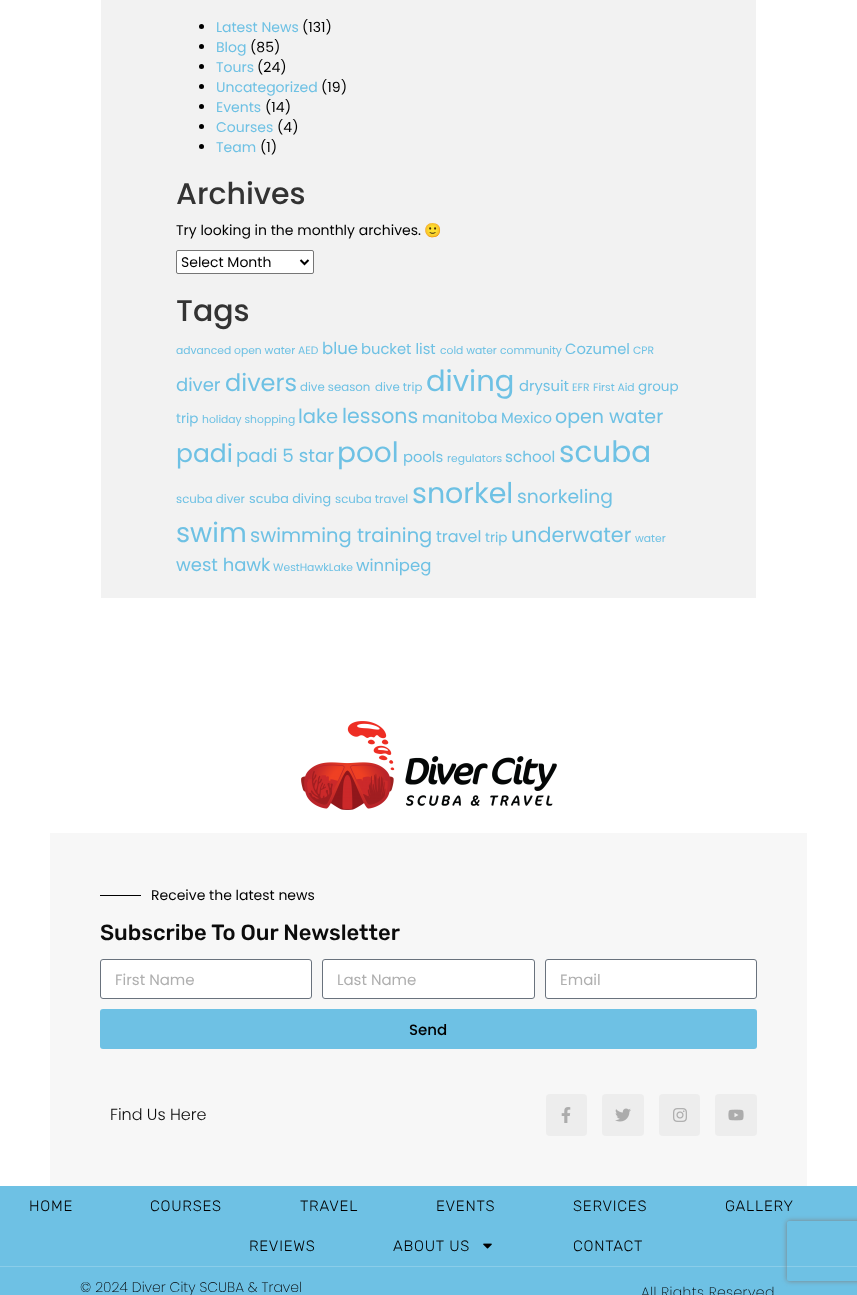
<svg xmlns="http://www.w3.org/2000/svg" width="857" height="1295">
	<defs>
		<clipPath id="clip1"><path d="M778 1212H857V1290H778ZM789 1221H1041C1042 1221 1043 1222 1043 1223V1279C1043 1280 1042 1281 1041 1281H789C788 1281 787 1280 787 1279V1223C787 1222 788 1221 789 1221Z" clip-rule="evenodd" /></clipPath>
	</defs>
	<rect width="100%" height="100%" fill="#FFFFFF" />
	<rect x="101" y="0" width="655" height="598" fill="#F2F2F2" />
	<circle cx="201.5" cy="26.5" r="2.5" fill="#000000" />
	<text x="216" y="32" font-family="Poppins" font-size="14" fill="#6EC1E4">Latest News</text>
	<text x="302" y="32" font-family="Poppins" font-size="14" fill="#000000">(131)</text>
	<circle cx="201.5" cy="46.5" r="2.5" fill="#000000" />
	<text x="216" y="52" font-family="Poppins" font-size="14" fill="#6EC1E4">Blog</text>
	<text x="250" y="52" font-family="Poppins" font-size="14" fill="#000000">(85)</text>
	<circle cx="201.5" cy="66.5" r="2.5" fill="#000000" />
	<text x="216" y="72" font-family="Poppins" font-size="14" fill="#6EC1E4">Tours</text>
	<text x="257" y="72" font-family="Poppins" font-size="14" fill="#000000">(24)</text>
	<circle cx="201.5" cy="86.5" r="2.5" fill="#000000" />
	<text x="216" y="92" font-family="Poppins" font-size="14" fill="#6EC1E4">Uncategorized</text>
	<text x="321" y="92" font-family="Poppins" font-size="14" fill="#000000">(19)</text>
	<circle cx="201.5" cy="106.5" r="2.5" fill="#000000" />
	<text x="216" y="112" font-family="Poppins" font-size="14" fill="#6EC1E4">Events</text>
	<text x="265" y="112" font-family="Poppins" font-size="14" fill="#000000">(14)</text>
	<circle cx="201.5" cy="126.5" r="2.5" fill="#000000" />
	<text x="216" y="132" font-family="Poppins" font-size="14" fill="#6EC1E4">Courses</text>
	<text x="277" y="132" font-family="Poppins" font-size="14" fill="#000000">(4)</text>
	<circle cx="201.5" cy="146.5" r="2.5" fill="#000000" />
	<text x="216" y="152" font-family="Poppins" font-size="14" fill="#6EC1E4">Team</text>
	<text x="260" y="152" font-family="Poppins" font-size="14" fill="#000000">(1)</text>
	<text x="176" y="204" font-family="Poppins" font-size="30" font-weight="500" fill="#333333">Archives</text>
	<text x="176" y="235" font-family="Poppins" font-size="14" fill="#000000">Try looking in the monthly archives.</text>
	<text x="424" y="235" font-family="Noto Color Emoji" font-size="14" fill="#000000">🙂</text>
	<rect x="176.5" y="250.5" width="137" height="23" rx="1.5" fill="#FFFFFF" stroke="#767676" />
	<path d="M300.5 260L304.5 264L308.5 260" fill="none" stroke="#000000" stroke-width="2" />
	<text x="181" y="267" font-family="Poppins" font-size="14" fill="#000000">Select Month</text>
	<text x="176" y="321" font-family="Poppins" font-size="30" font-weight="500" fill="#333333">Tags</text>
	<g font-family="Poppins" font-size="10.75" fill="#6EC1E4">
		<text x="176" y="354">advanced open water</text>
		<text x="298" y="354">AED</text>
	</g>
	<text x="322" y="354" font-family="Poppins" font-size="16.5" fill="#6EC1E4">blue</text>
	<text x="361" y="354" font-family="Poppins" font-size="14.75" fill="#6EC1E4">bucket list</text>
	<g font-family="Poppins" font-size="10.75" fill="#6EC1E4">
		<text x="440" y="354">cold water</text>
		<text x="500" y="354">community</text>
	</g>
	<text x="565" y="354" font-family="Poppins" font-size="14.75" fill="#6EC1E4">Cozumel</text>
	<text x="633" y="354" font-family="Poppins" font-size="10.75" fill="#6EC1E4">CPR</text>
	<text x="176" y="391" font-family="Poppins" font-size="18" fill="#6EC1E4">diver</text>
	<text x="225" y="391" font-family="Poppins" font-size="24" fill="#6EC1E4">divers</text>
	<g font-family="Poppins" font-size="11.75" fill="#6EC1E4">
		<text x="300" y="391">dive season</text>
		<text x="375" y="391">dive trip</text>
	</g>
	<text x="426" y="391" font-family="Poppins" font-size="29" fill="#6EC1E4">diving</text>
	<text x="519" y="391" font-family="Poppins" font-size="14.75" fill="#6EC1E4">drysuit</text>
	<g font-family="Poppins" font-size="10.75" fill="#6EC1E4">
		<text x="572" y="391">EFR</text>
		<text x="593" y="391">First Aid</text>
	</g>
	<g font-family="Poppins" font-size="13.5" fill="#6EC1E4">
		<text x="638" y="391">group</text>
		<text x="176" y="423">trip</text>
	</g>
	<text x="202" y="423" font-family="Poppins" font-size="10.75" fill="#6EC1E4">holiday shopping</text>
	<text x="298" y="423" font-family="Poppins" font-size="19.5" fill="#6EC1E4">lake</text>
	<text x="342" y="423" font-family="Poppins" font-size="20.5" fill="#6EC1E4">lessons</text>
	<text x="422" y="423" font-family="Poppins" font-size="15.25" fill="#6EC1E4">manitoba</text>
	<text x="501" y="423" font-family="Poppins" font-size="14.75" fill="#6EC1E4">Mexico</text>
	<text x="555" y="423" font-family="Poppins" font-size="19" fill="#6EC1E4">open water</text>
	<text x="176" y="462" font-family="Poppins" font-size="25" fill="#6EC1E4">padi</text>
	<text x="236" y="462" font-family="Poppins" font-size="18.25" fill="#6EC1E4">padi 5 star</text>
	<text x="337" y="462" font-family="Poppins" font-size="28" fill="#6EC1E4">pool</text>
	<text x="403" y="462" font-family="Poppins" font-size="14.75" fill="#6EC1E4">pools</text>
	<text x="447" y="462" font-family="Poppins" font-size="10.75" fill="#6EC1E4">regulators</text>
	<text x="505" y="462" font-family="Poppins" font-size="15.25" fill="#6EC1E4">school</text>
	<text x="559" y="462" font-family="Poppins" font-size="29.5" fill="#6EC1E4">scuba</text>
	<text x="176" y="503" font-family="Poppins" font-size="11.75" fill="#6EC1E4">scuba diver</text>
	<text x="249" y="503" font-family="Poppins" font-size="12.75" fill="#6EC1E4">scuba diving</text>
	<text x="335" y="503" font-family="Poppins" font-size="11.75" fill="#6EC1E4">scuba travel</text>
	<text x="412" y="503" font-family="Poppins" font-size="28.5" fill="#6EC1E4">snorkel</text>
	<text x="517" y="503" font-family="Poppins" font-size="18.75" fill="#6EC1E4">snorkeling</text>
	<text x="176" y="542" font-family="Poppins" font-size="27" fill="#6EC1E4">swim</text>
	<g font-family="Poppins" font-size="19.5" fill="#6EC1E4">
		<text x="250" y="542">swimming</text>
		<text x="357" y="542">training</text>
	</g>
	<text x="436" y="542" font-family="Poppins" font-size="16" fill="#6EC1E4">travel</text>
	<text x="485" y="542" font-family="Poppins" font-size="13.5" fill="#6EC1E4">trip</text>
	<text x="511" y="542" font-family="Poppins" font-size="20.75" fill="#6EC1E4">underwater</text>
	<text x="635" y="542" font-family="Poppins" font-size="10.75" fill="#6EC1E4">water</text>
	<text x="176" y="571" font-family="Poppins" font-size="18" fill="#6EC1E4">west hawk</text>
	<text x="273" y="571" font-family="Poppins" font-size="10.75" fill="#6EC1E4">WestHawkLake</text>
	<text x="356" y="571" font-family="Poppins" font-size="16.5" fill="#6EC1E4">winnipeg</text>
	<image x="301" y="721" width="256" height="89" href="assets/img1.png" />
	<rect x="50" y="833" width="757" height="353" fill="#F7F7F7" />
	<rect x="100" y="895" width="41" height="1" fill="#000000" />
	<text x="151" y="900" font-family="Poppins" font-size="14" fill="#000000">Receive the latest news</text>
	<text x="100" y="940" font-family="Rubik" font-size="22" font-weight="500" fill="#0C0C0C">Subscribe To Our Newsletter</text>
	<rect x="100.5" y="959.5" width="211" height="39" rx="2.5" fill="#FFFFFF" stroke="#69727D" />
	<text x="115" y="985" font-family="Poppins" font-size="15" fill="#AFAFAF">First Name</text>
	<rect x="322.5" y="959.5" width="212" height="39" rx="2.5" fill="#FFFFFF" stroke="#69727D" />
	<text x="337" y="985" font-family="Poppins" font-size="15" fill="#AFAFAF">Last Name</text>
	<rect x="545.5" y="959.5" width="211" height="39" rx="2.5" fill="#FFFFFF" stroke="#69727D" />
	<text x="560" y="985" font-family="Poppins" font-size="15" fill="#AFAFAF">Email</text>
	<rect x="100" y="1009" width="657" height="40" rx="3" fill="#6EC1E4" />
	<text x="409" y="1035" font-family="Poppins" font-size="15" font-weight="500" fill="#000000">Send</text>
	<text x="110" y="1120" font-family="Poppins" font-size="16" font-weight="300" fill="#0C0C0C">Find Us Here</text>
	<rect x="546" y="1094" width="41" height="42" rx="4" fill="#EDEDED" />
	<image x="561" y="1107" width="10" height="16" href="assets/img2.png" />
	<rect x="602" y="1094" width="42" height="42" rx="4" fill="#EDEDED" />
	<image x="615" y="1108" width="16" height="14" href="assets/img3.png" />
	<rect x="659" y="1094" width="41" height="42" rx="4" fill="#EDEDED" />
	<image x="673" y="1108" width="14" height="14" href="assets/img4.png" />
	<rect x="715" y="1094" width="42" height="42" rx="4" fill="#EDEDED" />
	<image x="728" y="1109" width="16" height="12" href="assets/img5.png" />
	<rect x="0" y="1186" width="857" height="80" fill="#6EC1E4" />
	<g font-family="Rubik" font-size="15" font-weight="300" letter-spacing="0.75" fill="#000000">
		<text x="29" y="1211">HOME</text>
		<text x="150" y="1211">COURSES</text>
		<text x="300" y="1211">TRAVEL</text>
		<text x="436" y="1211">EVENTS</text>
		<text x="573" y="1211">SERVICES</text>
		<text x="725" y="1211">GALLERY</text>
		<text x="249" y="1251">REVIEWS</text>
		<text x="393" y="1251">ABOUT US</text>
	</g>
	<image x="483" y="1243" width="9" height="6" href="assets/img6.png" />
	<text x="573" y="1251" font-family="Rubik" font-size="15" font-weight="300" letter-spacing="0.75" fill="#000000">CONTACT</text>
	<rect x="0" y="1267" width="857" height="28" fill="#6EC1E4" />
	<rect x="0" y="1266" width="857" height="1" fill="#8BCDE9" />
	<text x="80" y="1292" font-family="Poppins" font-size="14" font-weight="200" fill="#000000">© 2024 Diver City SCUBA &amp; Travel</text>
	<text x="641" y="1297" font-family="Poppins" font-size="14" font-weight="200" letter-spacing="0.4" fill="#000000">All Rights Reserved</text>
	<g clip-path="url(#clip1)">
		<rect x="787" y="1221" width="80" height="60" rx="2" fill="#808080" filter="blur(2.5px)" />
	</g>
</svg>
